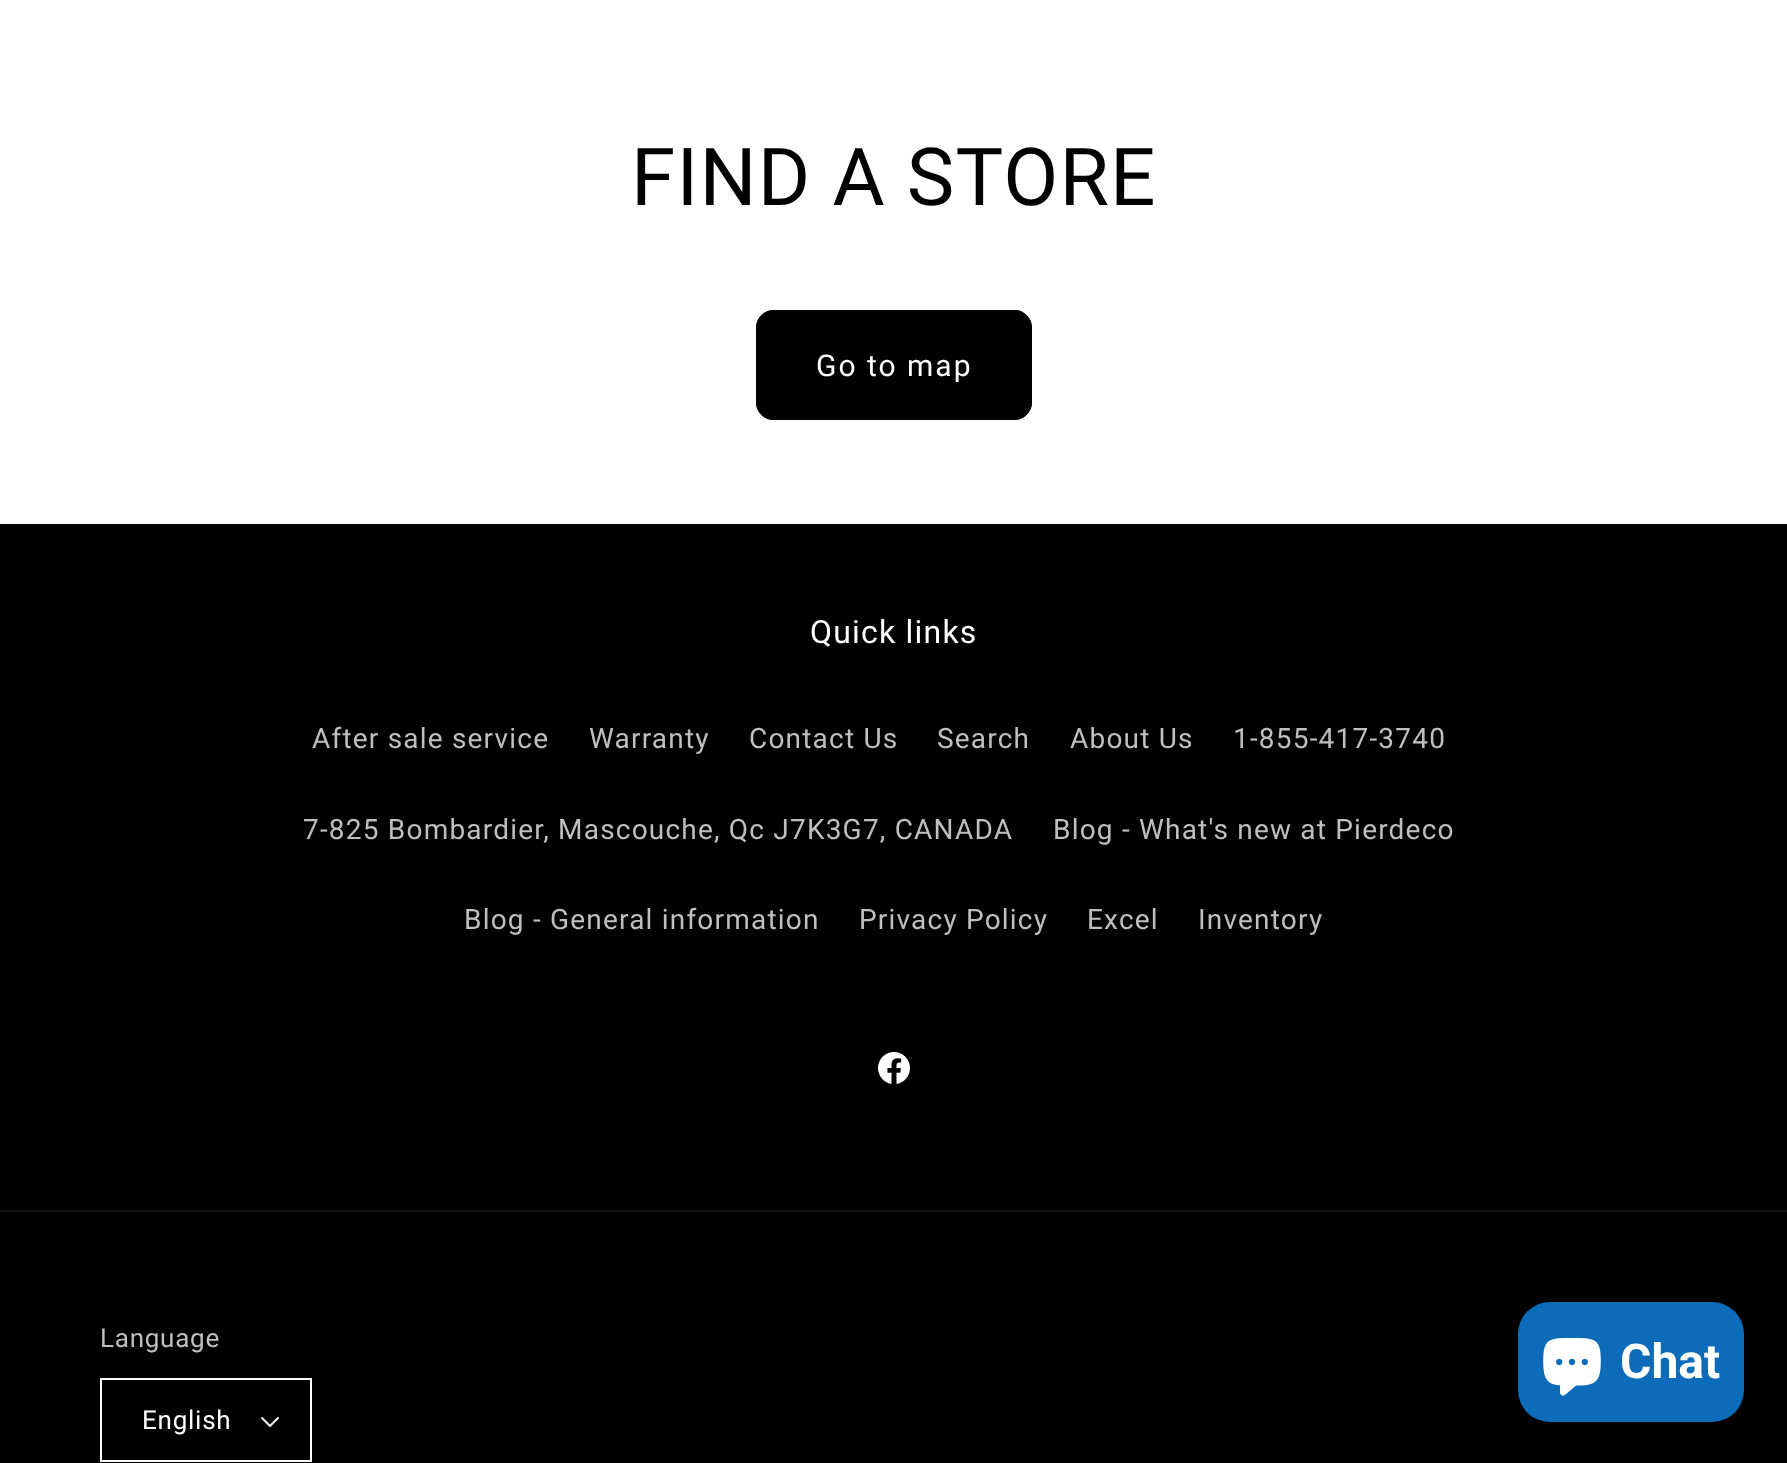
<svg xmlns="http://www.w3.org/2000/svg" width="1787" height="1463">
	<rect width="100%" height="100%" fill="#000000" />
	<rect x="0" y="0" width="1787" height="524" fill="#FFFFFF" />
	<text x="631" y="205" font-family="Roboto" font-size="80" letter-spacing="1.2" fill="#000000">FIND A STORE</text>
	<rect x="756" y="310" width="276" height="110" rx="18" fill="#000000" />
	<rect x="761" y="315" width="266" height="100" rx="13" fill="none" stroke="#000000" stroke-width="10" />
	<text x="816" y="376" font-family="Roboto" font-size="30" letter-spacing="2" fill="#FFFFFF">Go to map</text>
	<text x="810" y="643" font-family="Roboto" font-size="32" letter-spacing="1.2" fill="#FFFFFF">Quick links</text>
	<g font-family="Roboto" font-size="28" letter-spacing="1.2" fill="#BFBFBF">
		<text x="312" y="748">After sale service</text>
		<text x="589" y="748">Warranty</text>
		<text x="749" y="748">Contact Us</text>
		<text x="937" y="748">Search</text>
		<text x="1070" y="748">About Us</text>
		<text x="1233" y="748">1-855-417-3740</text>
		<text x="303" y="839">7-825 Bombardier, Mascouche, Qc J7K3G7, CANADA</text>
		<text x="1053" y="839">Blog - What's new at Pierdeco</text>
		<text x="464" y="929">Blog - General information</text>
		<text x="859" y="929">Privacy Policy</text>
		<text x="1087" y="929">Excel</text>
		<text x="1198" y="929">Inventory</text>
	</g>
	<image x="878" y="1052" width="32" height="32" href="assets/img1.png" />
	<rect x="0" y="1210" width="1787" height="2" fill="#141414" />
	<text x="100" y="1347" font-family="Roboto" font-size="26" letter-spacing="0.75" fill="#BFBFBF">Language</text>
	<image x="261" y="1417" width="18" height="10" href="assets/img2.png" />
	<rect x="101" y="1379" width="210" height="82" fill="none" stroke="#FFFFFF" stroke-width="2" />
	<text x="142" y="1429" font-family="Roboto" font-size="26" letter-spacing="0.75" fill="#FFFFFF">English</text>
	<rect x="1518" y="1302" width="226" height="120" rx="32" fill="#0D6CBA" />
	<image x="1543" y="1338" width="58" height="58" href="assets/img3.png" />
	<text x="1620" y="1378" font-family="Roboto" font-size="48" font-weight="700" fill="#FFFFFF">Chat</text>
</svg>
